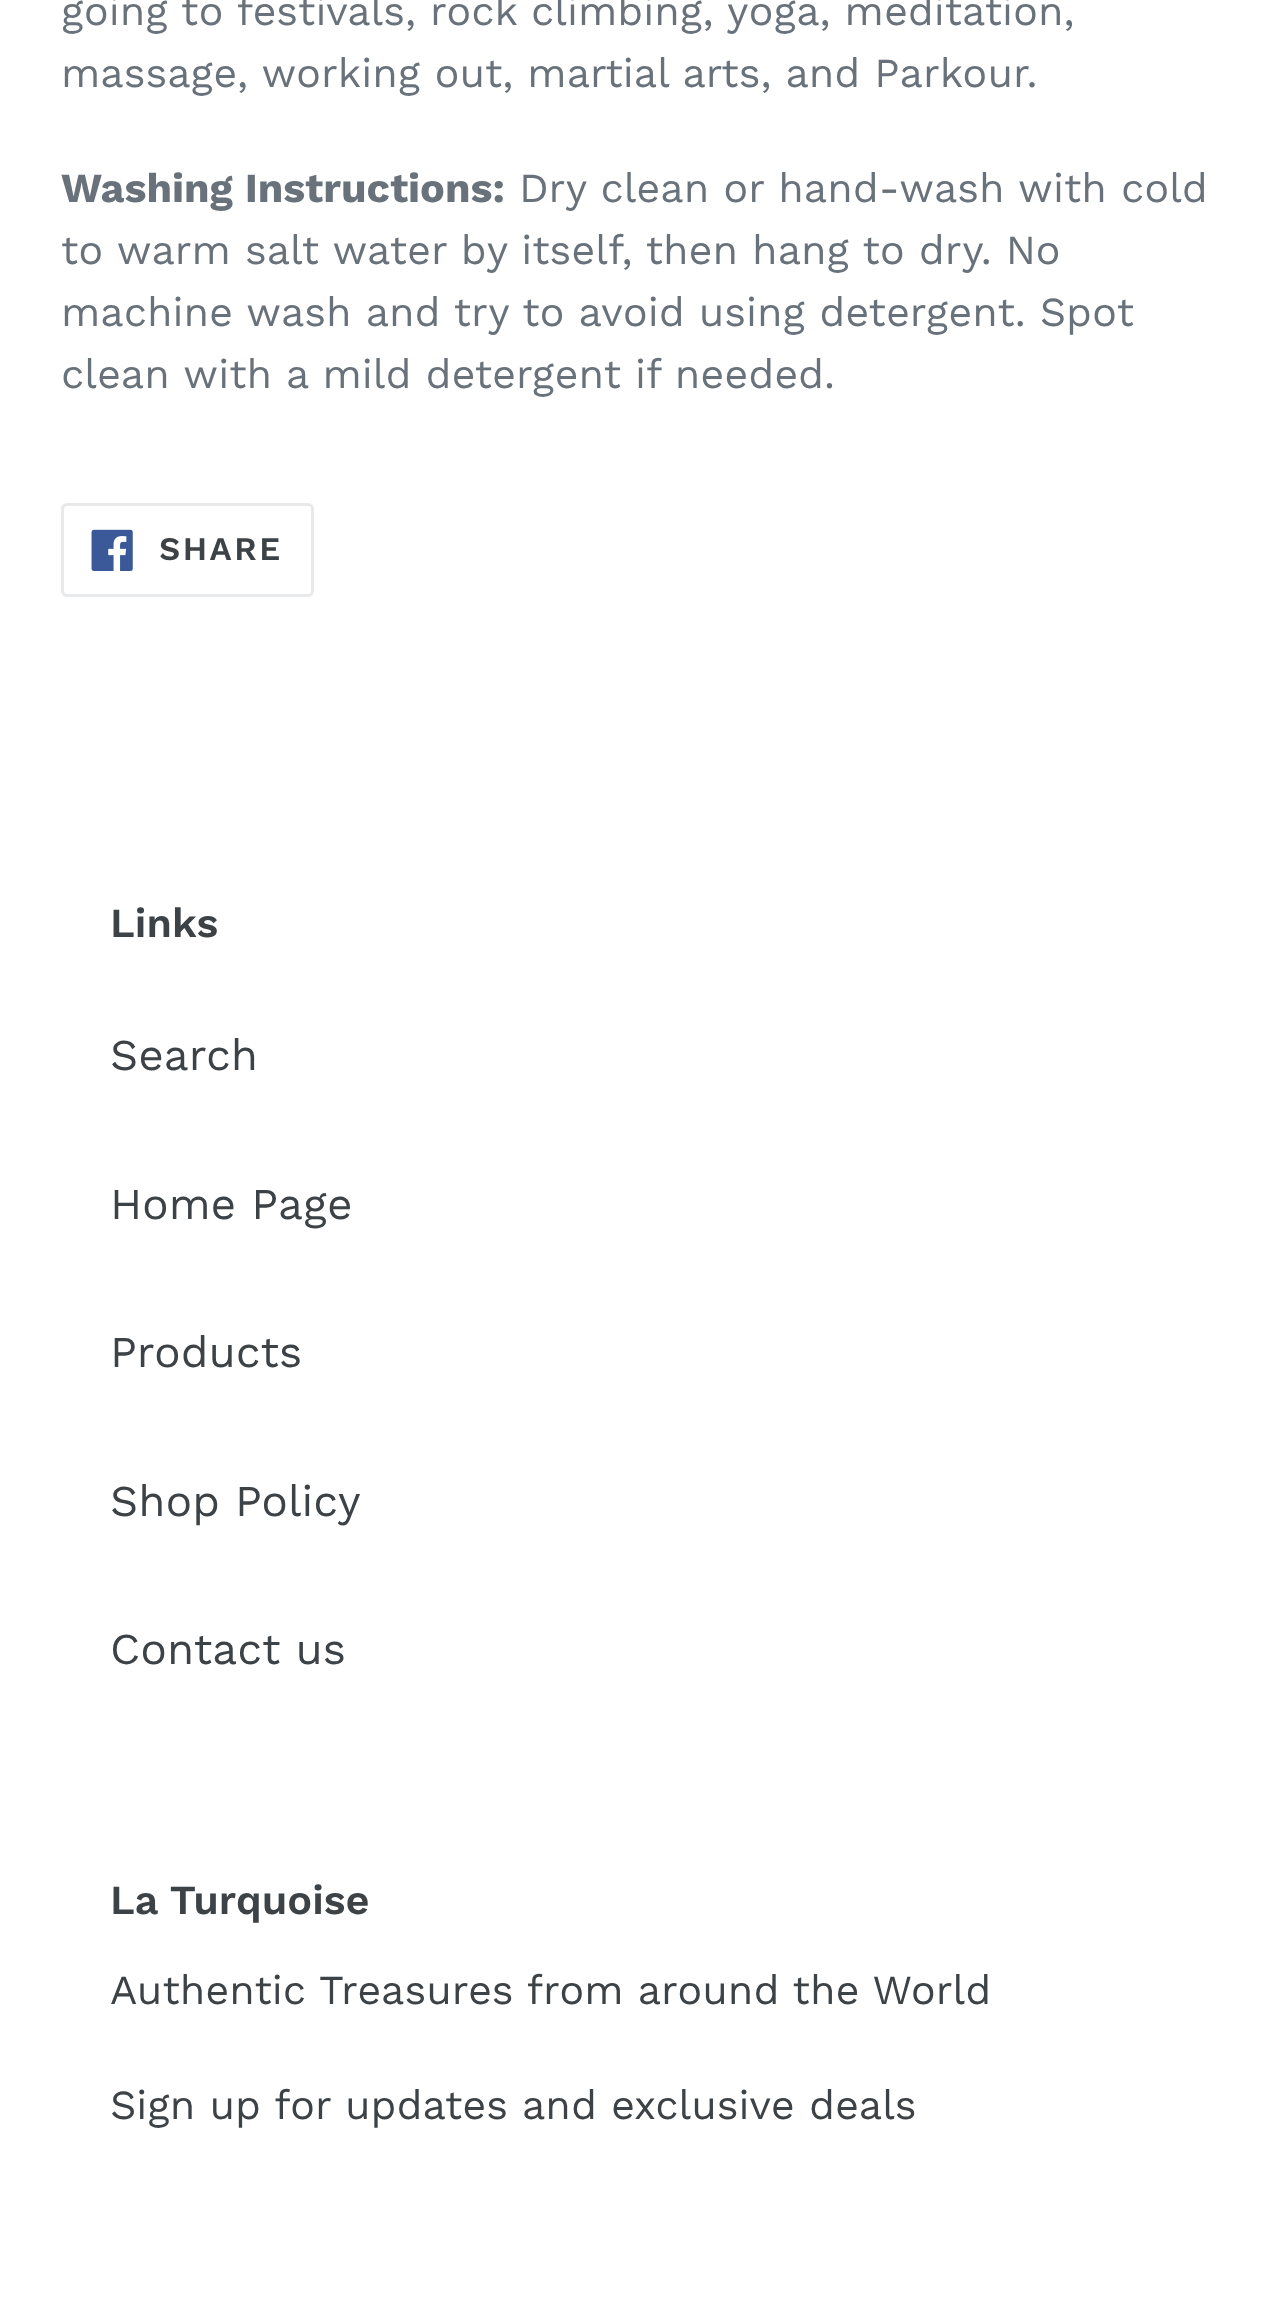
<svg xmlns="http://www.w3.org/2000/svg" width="1277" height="2306">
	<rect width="100%" height="100%" fill="#FFFFFF" />
	<g font-family="Work Sans" font-size="41.25" fill="#69727B">
		<text x="61" y="25">going to festivals, rock climbing, yoga, meditation,</text>
		<text x="61" y="87">massage, working out, martial arts, and Parkour.</text>
	</g>
	<text x="61" y="202" font-family="Work Sans" font-size="41.25" font-weight="700" fill="#69727B">Washing Instructions:</text>
	<g font-family="Work Sans" font-size="41.25" fill="#69727B">
		<text x="519" y="202">Dry clean or hand-wash with cold</text>
		<text x="61" y="264">to warm salt water by itself, then hang to dry. No</text>
		<text x="61" y="326">machine wash and try to avoid using detergent. Spot</text>
		<text x="61" y="388">clean with a mild detergent if needed.</text>
	</g>
	<rect x="62.5" y="504.5" width="250" height="91" rx="4.5" fill="none" stroke="#E8E9EB" stroke-width="3" />
	<image x="91" y="529" width="42" height="42" href="assets/img1.png" />
	<text x="159" y="560" font-family="Work Sans" font-size="33" font-weight="600" letter-spacing="2.5" fill="#3D4246">SHARE</text>
	<text x="110" y="937" font-family="Work Sans" font-size="41.25" font-weight="600" fill="#3D4246">Links</text>
	<g font-family="Work Sans" font-size="44" fill="#3D4246">
		<text x="110" y="1070">Search</text>
		<text x="110" y="1219">Home Page</text>
		<text x="110" y="1367">Products</text>
		<text x="110" y="1516">Shop Policy</text>
		<text x="110" y="1664">Contact us</text>
	</g>
	<text x="110" y="1914" font-family="Work Sans" font-size="41.25" font-weight="600" fill="#3D4246">La Turquoise</text>
	<g font-family="Work Sans" font-size="41.25" fill="#3D4246">
		<text x="110" y="2004">Authentic Treasures from around the World</text>
		<text x="110" y="2119">Sign up for updates and exclusive deals</text>
	</g>
</svg>
